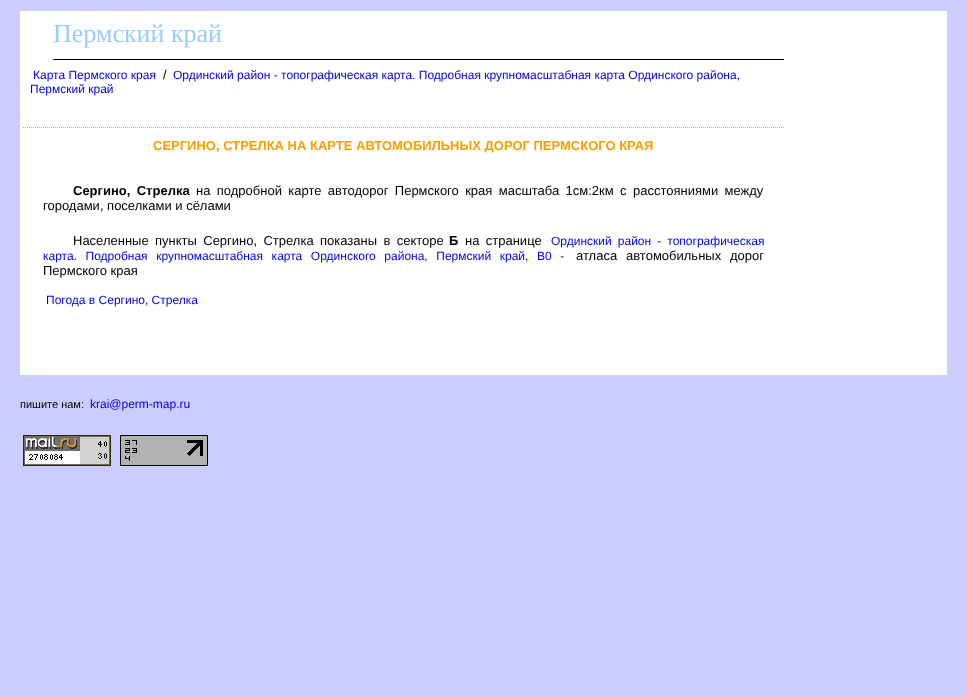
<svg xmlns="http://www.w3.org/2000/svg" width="967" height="697">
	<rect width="100%" height="100%" fill="#CCCCFF" />
	<rect x="20" y="11" width="927" height="364" fill="#FFFFFF" />
	<rect x="53" y="59" width="731" height="1" fill="#000000" />
	<text x="53" y="42" font-family="Liberation Serif" font-size="26" fill="#99CCFF">Пермский край</text>
	<text x="33" y="79" font-family="Liberation Sans" font-size="12" fill="#0000EE">Карта Пермского края</text>
	<text x="163" y="79" font-family="Liberation Sans" font-size="13" fill="#000000">/</text>
	<g font-family="Liberation Sans" font-size="12" fill="#0000EE">
		<text x="173" y="79">Ординский район - топографическая карта. Подробная крупномасштабная карта Ординского района,</text>
		<text x="30" y="93">Пермский край</text>
	</g>
	<path d="M23 127.5H784" fill="none" stroke="#FFA500" stroke-dasharray="1 1" />
	<text x="153" y="150" font-family="Liberation Sans" font-size="13" font-weight="700" fill="#F9A000">СЕРГИНО, СТРЕЛКА НА КАРТЕ АВТОМОБИЛЬНЫХ ДОРОГ ПЕРМСКОГО КРАЯ</text>
	<text x="73" y="195" word-spacing="2.75" font-family="Liberation Sans" font-size="13" font-weight="700" fill="#000000">Сергино, Стрелка</text>
	<g font-family="Liberation Sans" font-size="13" fill="#000000">
		<text x="196" y="195" word-spacing="2.75">на подробной карте автодорог Пермского края масштаба 1см:2км с расстояниями между</text>
		<text x="43" y="210">городами, поселками и сёлами</text>
		<text x="73" y="245" word-spacing="2.75">Населенные пункты Сергино, Стрелка показаны в секторе</text>
	</g>
	<text x="449" y="245" font-family="Liberation Sans" font-size="13" font-weight="700" fill="#000000">Б</text>
	<text x="465" y="245" word-spacing="2.75" font-family="Liberation Sans" font-size="13" fill="#000000">на странице</text>
	<g font-family="Liberation Sans" font-size="12" fill="#0000EE">
		<text x="551" y="245" word-spacing="2.75">Ординский район - топографическая</text>
		<text x="43" y="260" word-spacing="5.25">карта. Подробная крупномасштабная карта Ординского района, Пермский край, B0 -</text>
	</g>
	<g font-family="Liberation Sans" font-size="13" fill="#000000">
		<text x="576" y="260" word-spacing="5.25">атласа автомобильных дорог</text>
		<text x="43" y="275">Пермского края</text>
	</g>
	<text x="46" y="304" font-family="Liberation Sans" font-size="12" fill="#0000EE">Погода в Сергино, Стрелка</text>
	<text x="20" y="408" font-family="Liberation Sans" font-size="11" fill="#000000">пишите нам:</text>
	<text x="90" y="408" font-family="Liberation Sans" font-size="12" fill="#0000EE">krai@perm-map.ru</text>
	<image x="23" y="435" width="88" height="31" href="assets/img1.png" />
	<image x="120" y="435" width="88" height="31" href="assets/img2.png" />
</svg>
